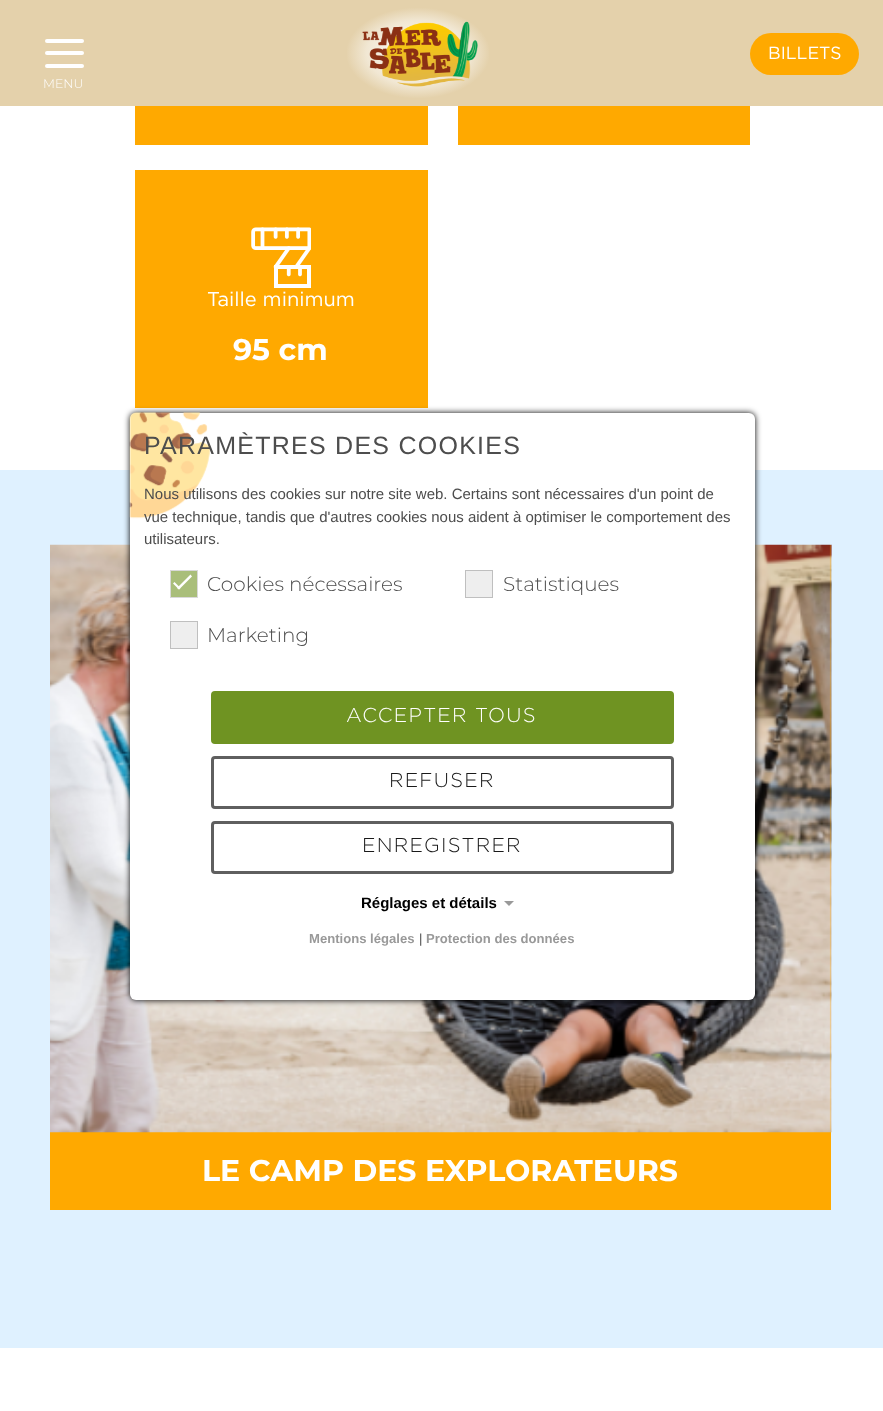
<svg xmlns="http://www.w3.org/2000/svg" width="883" height="1411">
	<defs>
		<radialGradient id="g1" gradientUnits="userSpaceOnUse" cx="0" cy="0" r="1" gradientTransform="matrix(103 0 0 65 418 53)"><stop offset="0" stop-color="#FFFFFF" /><stop offset="0.5" stop-color="#F1E7D3" /><stop offset="0.7" stop-color="#E4D1AB" /></radialGradient>
	</defs>
	<rect width="100%" height="100%" fill="#FFFFFF" />
	<rect x="0" y="0" width="883" height="106" fill="#E4D1AB" />
	<rect x="347" y="8" width="142" height="90" fill="url(#g1)" />
	<image x="362" y="21" width="116" height="66" href="assets/img1.png" />
	<rect x="750" y="33" width="109" height="42" rx="21" fill="#FFA900" />
	<text x="768" y="59" font-family="Gotham" font-size="17.5" fill="#FFFFFF">BILLETS</text>
	<rect x="45" y="51" width="39" height="4" rx="2" fill="#FFFFFF" />
	<rect x="45" y="39" width="39" height="4" rx="2" fill="#FFFFFF" />
	<rect x="45" y="64" width="39" height="4" rx="2" fill="#FFFFFF" />
	<text x="43" y="88" font-family="Montserrat" font-size="12.5" font-weight="300" fill="#FFFFFF">MENU</text>
	<rect x="135" y="106" width="293" height="39" fill="#FFA900" />
	<rect x="458" y="106" width="292" height="39" fill="#FFA900" />
	<rect x="135" y="170" width="293" height="238" fill="#FFA900" />
	<image x="251" y="227" width="60" height="61" href="assets/img2.png" />
	<text x="207" y="306" font-family="Gotham" font-size="20" fill="#FFFFFF">Taille minimum</text>
	<text x="233" y="360" font-family="Montserrat" font-size="30" font-weight="700" fill="#FFFFFF">95 cm</text>
	<rect x="0" y="470" width="883" height="878" fill="#DFF1FF" />
	<rect x="50" y="545" width="781" height="665" fill="#FFA900" />
	<image x="50" y="544" width="782" height="589" href="assets/img3.png" />
	<text x="202" y="1181" font-family="Montserrat" font-size="30" font-weight="700" fill="#FFFFFF">LE CAMP DES EXPLORATEURS</text>
	<rect x="130" y="413" width="625" height="587" rx="6" fill="#000000" filter="blur(3px)" />
	<rect x="130" y="413" width="625" height="587" rx="6" fill="#FFFFFF" />
	<image x="129" y="412" width="82" height="107" href="assets/img4.png" />
	<text x="144" y="454" font-family="Liberation Sans" font-size="25" letter-spacing="1.25" fill="#4D4D4D">PARAMÈTRES DES COOKIES</text>
	<g font-family="Liberation Sans" font-size="15" fill="#4D4D4D">
		<text x="144" y="499">Nous utilisons des cookies sur notre site web. Certains sont nécessaires d'un point de</text>
		<text x="144" y="522">vue technique, tandis que d'autres cookies nous aident à optimiser le comportement des</text>
		<text x="144" y="544">utilisateurs.</text>
	</g>
	<rect x="170.5" y="570.5" width="27" height="27" fill="#A9BE7A" stroke="#D9D9D9" />
	<path d="M190.5 574.5L192 576.5L179 589.5L177 588Z" fill="#FFFFFF" />
	<path d="M174.5 582L180.5 588L179 589.5L173 583.5Z" fill="#FFFFFF" />
	<text x="207" y="591" font-family="Montserrat" font-size="20" font-weight="300" fill="#4D4D4D">Cookies nécessaires</text>
	<rect x="465.5" y="570.5" width="27" height="27" fill="#EEEEEE" stroke="#BFBFBF" />
	<text x="503" y="591" font-family="Montserrat" font-size="20" font-weight="300" fill="#4D4D4D">Statistiques</text>
	<rect x="170.5" y="621.5" width="27" height="27" fill="#EEEEEE" stroke="#BFBFBF" />
	<text x="207" y="642" font-family="Montserrat" font-size="20" font-weight="300" fill="#4D4D4D">Marketing</text>
	<rect x="212.5" y="692.5" width="460" height="50" rx="2.5" fill="#6F9322" stroke="#6F9322" stroke-width="3" />
	<text x="346" y="722" font-family="Gotham" font-size="20" font-weight="300" letter-spacing="1.25" fill="#FFFFFF">ACCEPTER TOUS</text>
	<rect x="212.5" y="757.5" width="460" height="50" rx="2.5" fill="none" stroke="#5F5F5F" stroke-width="3" />
	<text x="389" y="787" font-family="Gotham" font-size="20" font-weight="300" letter-spacing="1.25" fill="#1A1A1A">REFUSER</text>
	<rect x="212.5" y="822.5" width="460" height="50" rx="2.5" fill="none" stroke="#5F5F5F" stroke-width="3" />
	<text x="362" y="852" font-family="Gotham" font-size="20" font-weight="300" letter-spacing="1.25" fill="#1A1A1A">ENREGISTRER</text>
	<text x="361" y="908" font-family="Liberation Sans" font-size="15" font-weight="700" fill="#000000">Réglages et détails</text>
	<path d="M504 901H514L509 906Z" fill="#999999" />
	<text x="309" y="943" font-family="Liberation Sans" font-size="13.1" font-weight="700" fill="#999999">Mentions légales</text>
	<text x="419" y="943" font-family="Liberation Sans" font-size="13.1" fill="#4D4D4D">|</text>
	<text x="426" y="943" font-family="Liberation Sans" font-size="13.1" font-weight="700" fill="#999999">Protection des données</text>
</svg>
